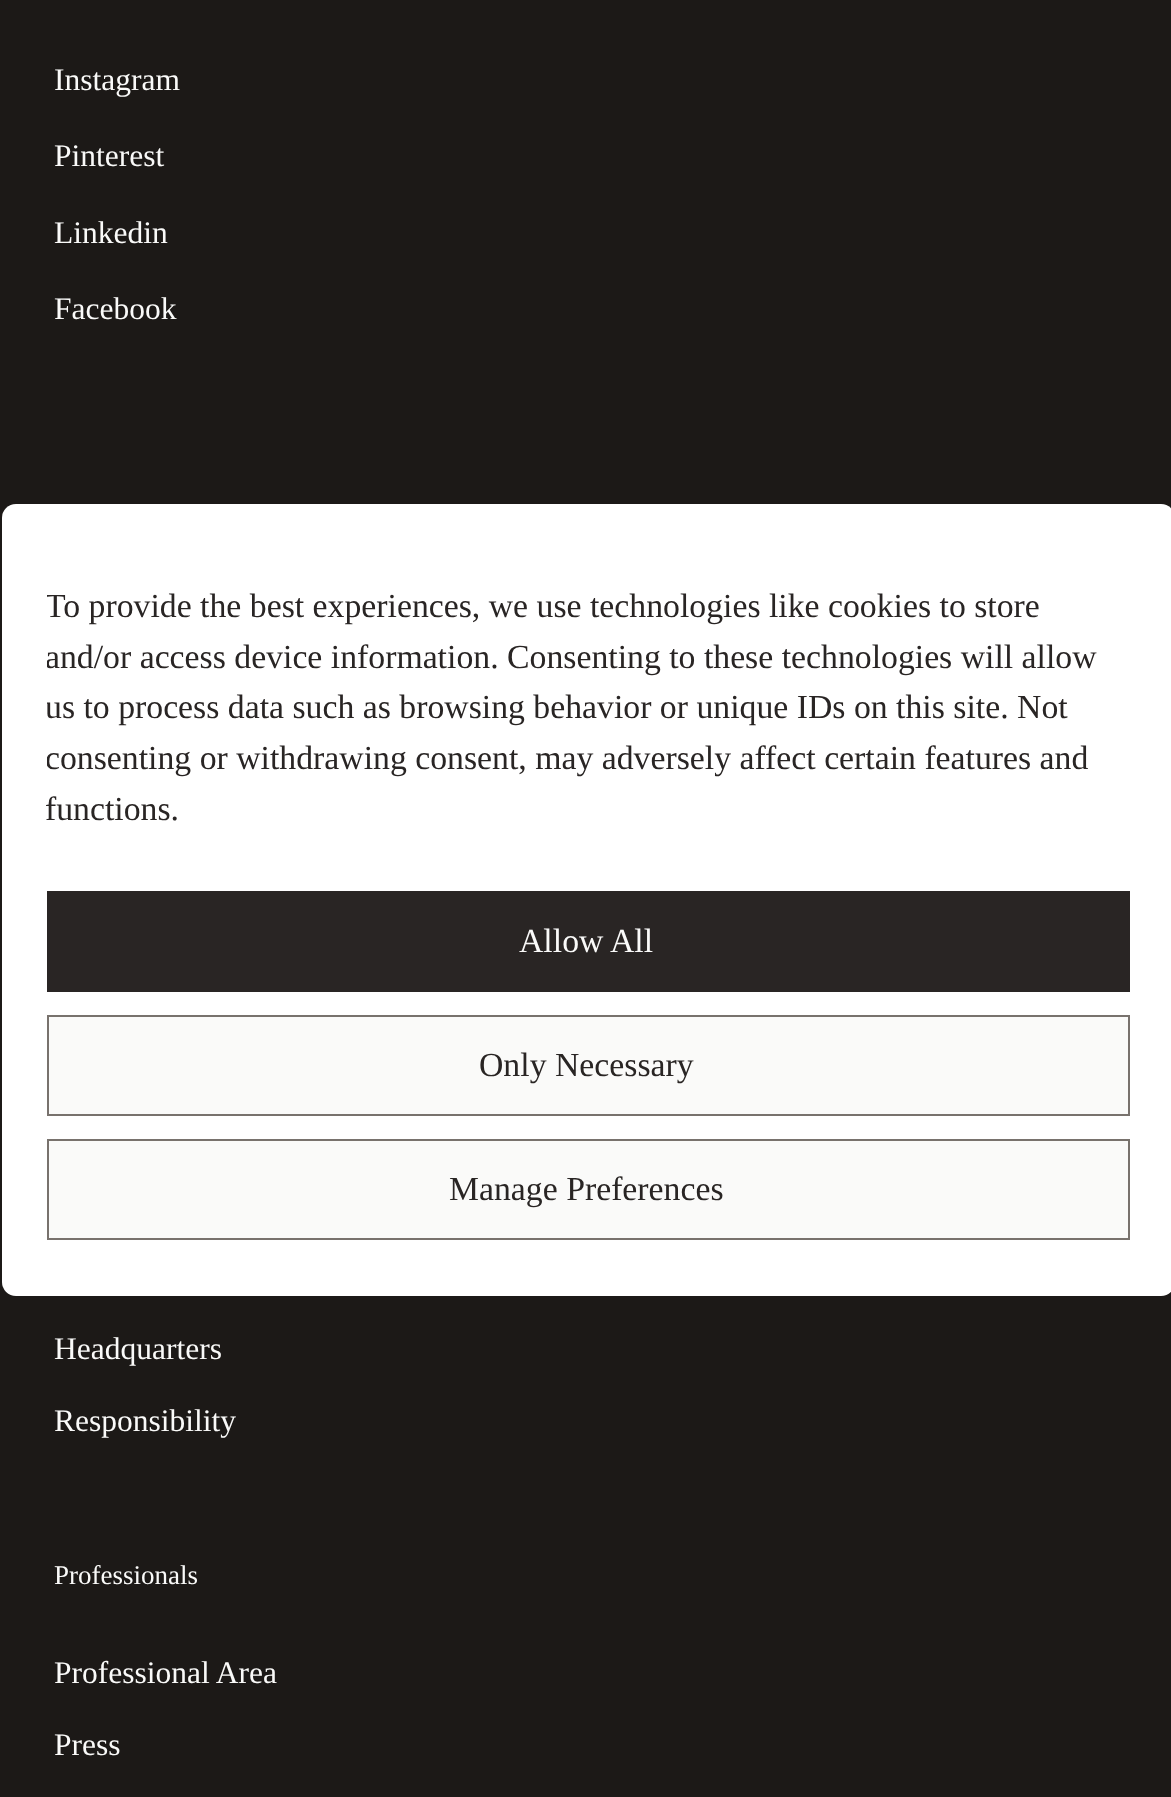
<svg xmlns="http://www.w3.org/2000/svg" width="1171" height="1797">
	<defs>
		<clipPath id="clip1"><rect x="47" y="583" width="1083" height="263" /></clipPath>
	</defs>
	<rect width="100%" height="100%" fill="#1C1917" />
	<g font-family="Liberation Serif" font-size="31.5" fill="#FAFAF9">
		<text x="54" y="90">Instagram</text>
		<text x="54" y="166">Pinterest</text>
		<text x="54" y="243">Linkedin</text>
		<text x="54" y="319">Facebook</text>
		<text x="54" y="1359">Headquarters</text>
		<text x="54" y="1431">Responsibility</text>
	</g>
	<text x="54" y="1584" font-family="Liberation Serif" font-size="27" fill="#FAFAF9">Professionals</text>
	<g font-family="Liberation Serif" font-size="31.5" fill="#FAFAF9">
		<text x="54" y="1683">Professional Area</text>
		<text x="54" y="1755">Press</text>
	</g>
	<rect x="2" y="504" width="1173" height="792" rx="14" fill="#FFFFFF" />
	<g clip-path="url(#clip1)">
		<g font-family="Liberation Serif" font-size="33.75" fill="#292524">
			<text x="45" y="617">To provide the best experiences, we use technologies like cookies to store</text>
			<text x="45" y="668">and/or access device information. Consenting to these technologies will allow</text>
			<text x="45" y="718">us to process data such as browsing behavior or unique IDs on this site. Not</text>
			<text x="45" y="769">consenting or withdrawing consent, may adversely affect certain features and</text>
		</g>
	</g>
	<text x="45" y="820" font-family="Liberation Serif" font-size="33.75" fill="#292524">functions.</text>
	<rect x="47" y="891" width="1083" height="101" fill="#292524" />
	<text x="519" y="952" font-family="Liberation Serif" font-size="33.75" fill="#FAFAF9">Allow All</text>
	<rect x="48" y="1016" width="1081" height="99" fill="#FAFAF9" stroke="#78726D" stroke-width="2" />
	<text x="479" y="1076" font-family="Liberation Serif" font-size="33.75" fill="#292524">Only Necessary</text>
	<rect x="48" y="1140" width="1081" height="99" fill="#FAFAF9" stroke="#78726D" stroke-width="2" />
	<text x="449" y="1200" font-family="Liberation Serif" font-size="33.75" fill="#292524">Manage Preferences</text>
</svg>
